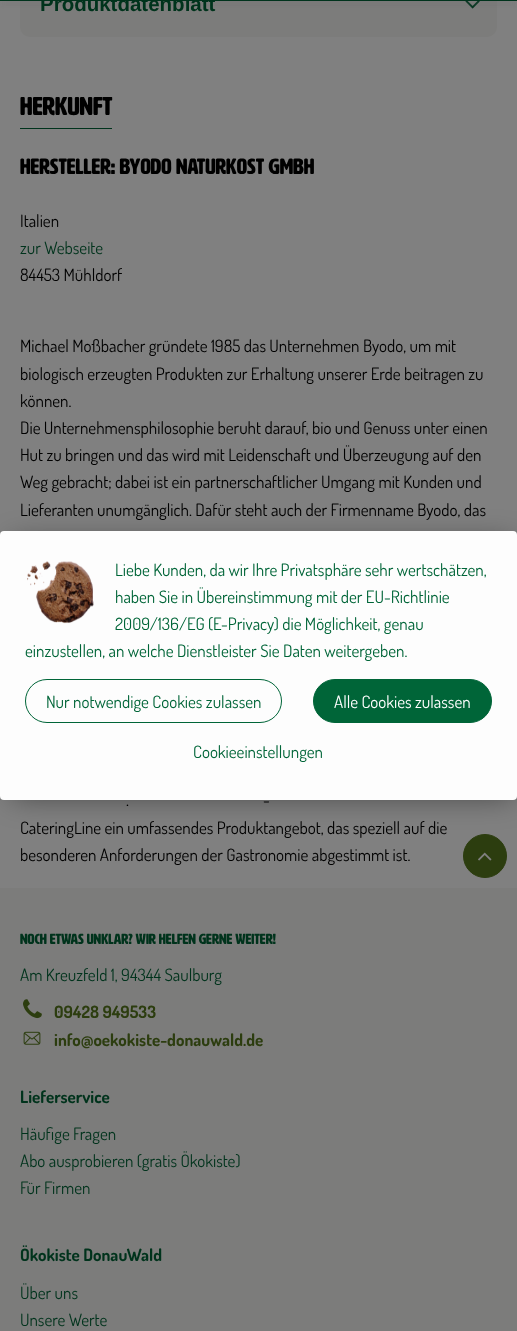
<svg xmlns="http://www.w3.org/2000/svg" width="517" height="1331">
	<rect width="100%" height="100%" fill="#808080" />
	<rect x="20" y="-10" width="477" height="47" rx="10" fill="#7C7C7B" />
	<image x="465" y="1" width="15" height="8" href="assets/img1.png" />
	<rect x="0" y="3" width="517" height="1" fill="#6F6F6F" filter="blur(2.5px)" />
	<rect x="0" y="0" width="517" height="1" fill="#00331C" />
	<text x="40" y="11" font-family="Liberation Sans" font-size="20.5" font-weight="700" fill="#00331C">Produktdatenblatt</text>
	<rect x="20" y="128" width="92" height="1" fill="#00331C" />
	<text x="20" y="115" font-family="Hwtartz" font-size="25.5" font-weight="700" fill="#000000">Herkunft</text>
	<text x="20" y="174" font-family="Hwtartz" font-size="21.75" font-weight="700" fill="#000000">Hersteller: byodo Naturkost Gmbh</text>
	<text x="20" y="227" font-family="Dosis" font-size="17" fill="#000000">Italien</text>
	<text x="20" y="254" font-family="Dosis" font-size="17" fill="#00331C">zur Webseite</text>
	<g font-family="Dosis" font-size="17" fill="#000000">
		<text x="20" y="281">84453 Mühldorf</text>
		<text x="20" y="352">Michael Moßbacher gründete 1985 das Unternehmen Byodo, um mit</text>
		<text x="20" y="380">biologisch erzeugten Produkten zur Erhaltung unserer Erde beitragen zu</text>
		<text x="20" y="407">können.</text>
		<text x="20" y="434">Die Unternehmensphilosophie beruht darauf, bio und Genuss unter einen</text>
		<text x="20" y="461">Hut zu bringen und das wird mit Leidenschaft und Überzeugung auf den</text>
		<text x="20" y="488">Weg gebracht; dabei ist ein partnerschaftlicher Umgang mit Kunden und</text>
		<text x="20" y="516">Lieferanten unumgänglich. Dafür steht auch der Firmenname Byodo, das</text>
		<text x="263" y="806">-</text>
		<text x="126" y="806">.</text>
		<text x="20" y="834">CateringLine ein umfassendes Produktangebot, das speziell auf die</text>
		<text x="20" y="861">besonderen Anforderungen der Gastronomie abgestimmt ist.</text>
	</g>
	<circle cx="485" cy="856" r="21.5" fill="#2C3D0F" stroke="#2C3D0F" />
	<image x="478" y="852" width="14" height="9" href="assets/img2.png" />
	<rect x="0" y="888" width="517" height="443" fill="#7C7C7B" />
	<text x="20" y="944" font-family="Hwtartz" font-size="14.5" font-weight="700" fill="#00331C">Noch etwas Unklar? Wir helfen gerne weiter!</text>
	<text x="20" y="981" font-family="Dosis" font-size="17" fill="#00331C">Am Kreuzfeld 1, 94344 Saulburg</text>
	<image x="23" y="999" width="19" height="20" href="assets/img3.png" />
	<text x="54" y="1018" font-family="Dosis" font-size="17" font-weight="700" fill="#2C3D0F">09428 949533</text>
	<image x="23" y="1031" width="18" height="14" href="assets/img4.png" />
	<text x="54" y="1046" font-family="Dosis" font-size="17" font-weight="700" fill="#2C3D0F">info@oekokiste-donauwald.de</text>
	<text x="20" y="1103" font-family="Dosis" font-size="17" font-weight="700" fill="#00331C">Lieferservice</text>
	<g font-family="Dosis" font-size="17" fill="#00331C">
		<text x="20" y="1140">Häufige Fragen</text>
		<text x="20" y="1167">Abo ausprobieren (gratis Ökokiste)</text>
		<text x="20" y="1194">Für Firmen</text>
	</g>
	<text x="20" y="1261" font-family="Dosis" font-size="17" font-weight="700" fill="#00331C">Ökokiste DonauWald</text>
	<g font-family="Dosis" font-size="17" fill="#00331C">
		<text x="20" y="1299">Über uns</text>
		<text x="20" y="1326">Unsere Werte</text>
	</g>
	<rect x="12" y="543" width="501" height="253" fill="#000000" fill-opacity="0.5" filter="blur(15px)" />
	<rect x="0" y="531" width="517" height="269" rx="4" fill="#FDFDFD" />
	<image x="27" y="561" width="67" height="63" href="assets/img5.png" />
	<g font-family="Dosis" font-size="17" fill="#006538">
		<text x="115" y="576">Liebe Kunden, da wir Ihre Privatsphäre sehr wertschätzen,</text>
		<text x="115" y="603">haben Sie in Übereinstimmung mit der EU-Richtlinie</text>
		<text x="115" y="630">2009/136/EG (E-Privacy) die Möglichkeit, genau</text>
		<text x="25" y="657">einzustellen, an welche Dienstleister Sie Daten weitergeben.</text>
	</g>
	<rect x="25.5" y="679.5" width="256" height="43" rx="21.5" fill="none" stroke="#006538" />
	<text x="46" y="708" font-family="Dosis" font-size="17" fill="#006538">Nur notwendige Cookies zulassen</text>
	<rect x="313.5" y="679.5" width="178" height="43" rx="21.5" fill="#006538" stroke="#006538" />
	<text x="334" y="708" font-family="Dosis" font-size="17" fill="#FFFFFF">Alle Cookies zulassen</text>
	<text x="193" y="758" font-family="Dosis" font-size="17" fill="#006538">Cookieeinstellungen</text>
</svg>
